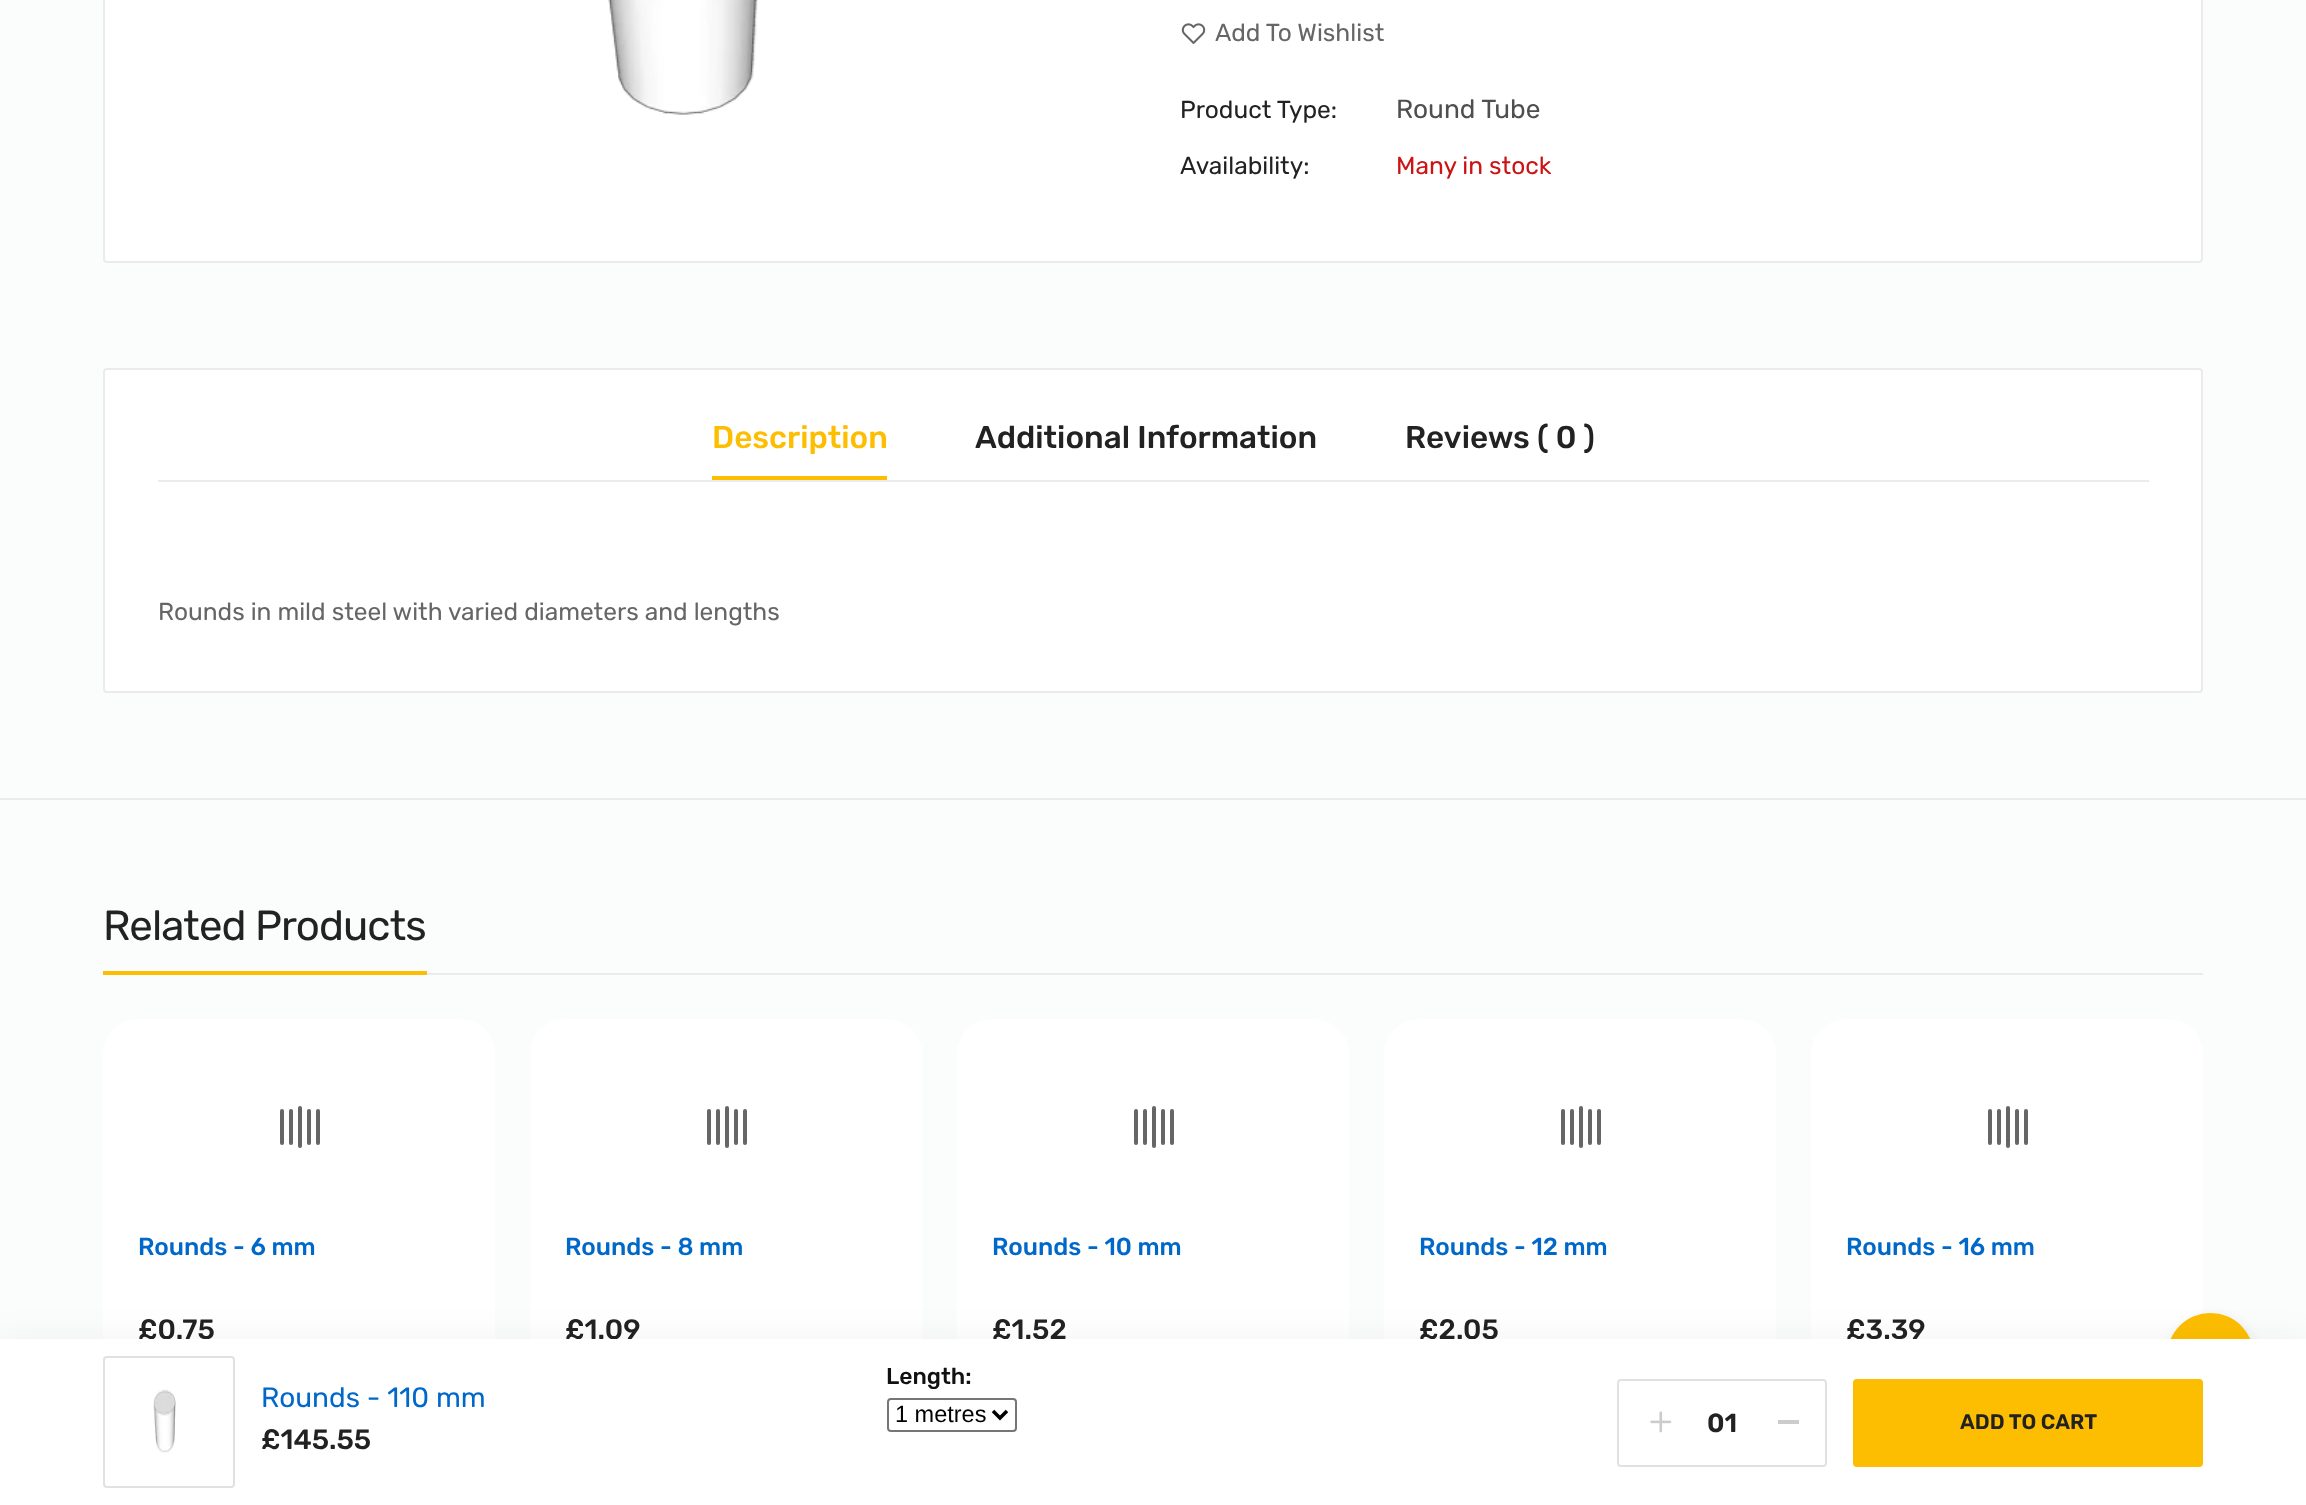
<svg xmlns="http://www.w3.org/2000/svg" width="2306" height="1505">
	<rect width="100%" height="100%" fill="#FBFCFC" />
	<rect x="104" y="-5" width="2098" height="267" rx="3" fill="#FFFFFF" stroke="#EBEBEB" stroke-width="2" />
	<image x="608" y="0" width="150" height="115" href="assets/img1.png" />
	<image x="1181" y="23" width="25" height="21" href="assets/img2.png" />
	<text x="1215" y="41" font-family="Rubik" font-size="24.5" fill="#666666">Add To Wishlist</text>
	<text x="1180" y="118" font-family="Rubik" font-size="24.5" fill="#222222">Product Type:</text>
	<text x="1396" y="118" font-family="Rubik" font-size="26.25" fill="#4F4F4F">Round Tube</text>
	<text x="1180" y="174" font-family="Rubik" font-size="24.5" fill="#222222">Availability:</text>
	<text x="1396" y="174" font-family="Rubik" font-size="24.5" fill="#CC1414">Many in stock</text>
	<rect x="0" y="798" width="2306" height="2" fill="#EBEBEB" />
	<rect x="104" y="369" width="2098" height="323" rx="3" fill="#FFFFFF" stroke="#EBEBEB" stroke-width="2" />
	<rect x="158" y="480" width="1991" height="2" fill="#EBEBEB" />
	<text x="712" y="448" font-family="Rubik" font-size="31.5" font-weight="500" fill="#FDBE01">Description</text>
	<rect x="712" y="476" width="175" height="4" fill="#FDBE01" />
	<g font-family="Rubik" font-size="31.5" font-weight="500" fill="#222222">
		<text x="975" y="448">Additional Information</text>
		<text x="1405" y="448">Reviews ( 0 )</text>
	</g>
	<text x="158" y="620" font-family="Rubik" font-size="24.5" fill="#666666">Rounds in mild steel with varied diameters and lengths</text>
	<rect x="427" y="973" width="1776" height="2" fill="#EBEBEB" />
	<text x="103" y="940" font-family="Rubik" font-size="42" letter-spacing="-0.9" fill="#222222">Related Products</text>
	<rect x="103" y="971" width="324" height="4" fill="#FDBE01" />
	<rect x="103" y="1019" width="392" height="374" rx="35" fill="#FFFFFF" />
	<rect x="280" y="1109" width="4" height="36" rx="2" fill="#666666" />
	<rect x="289" y="1109" width="4" height="36" rx="2" fill="#666666" />
	<rect x="298" y="1106" width="4" height="42" rx="2" fill="#666666" />
	<rect x="307" y="1109" width="4" height="36" rx="2" fill="#666666" />
	<rect x="316" y="1109" width="4" height="36" rx="2" fill="#666666" />
	<text x="138" y="1255" font-family="Rubik" font-size="24.5" font-weight="500" fill="#0068C9">Rounds - 6 mm</text>
	<text x="138" y="1339" font-family="Rubik" font-size="28" font-weight="500" fill="#222222">£0.75</text>
	<rect x="530" y="1019" width="392" height="374" rx="35" fill="#FFFFFF" />
	<rect x="707" y="1109" width="4" height="36" rx="2" fill="#666666" />
	<rect x="716" y="1109" width="4" height="36" rx="2" fill="#666666" />
	<rect x="725" y="1106" width="4" height="42" rx="2" fill="#666666" />
	<rect x="734" y="1109" width="4" height="36" rx="2" fill="#666666" />
	<rect x="743" y="1109" width="4" height="36" rx="2" fill="#666666" />
	<text x="565" y="1255" font-family="Rubik" font-size="24.5" font-weight="500" fill="#0068C9">Rounds - 8 mm</text>
	<text x="565" y="1339" font-family="Rubik" font-size="28" font-weight="500" fill="#222222">£1.09</text>
	<rect x="957" y="1019" width="392" height="374" rx="35" fill="#FFFFFF" />
	<rect x="1134" y="1109" width="4" height="36" rx="2" fill="#666666" />
	<rect x="1143" y="1109" width="4" height="36" rx="2" fill="#666666" />
	<rect x="1152" y="1106" width="4" height="42" rx="2" fill="#666666" />
	<rect x="1161" y="1109" width="4" height="36" rx="2" fill="#666666" />
	<rect x="1170" y="1109" width="4" height="36" rx="2" fill="#666666" />
	<text x="992" y="1255" font-family="Rubik" font-size="24.5" font-weight="500" fill="#0068C9">Rounds - 10 mm</text>
	<text x="992" y="1339" font-family="Rubik" font-size="28" font-weight="500" fill="#222222">£1.52</text>
	<rect x="1384" y="1019" width="392" height="374" rx="35" fill="#FFFFFF" />
	<rect x="1561" y="1109" width="4" height="36" rx="2" fill="#666666" />
	<rect x="1570" y="1109" width="4" height="36" rx="2" fill="#666666" />
	<rect x="1579" y="1106" width="4" height="42" rx="2" fill="#666666" />
	<rect x="1588" y="1109" width="4" height="36" rx="2" fill="#666666" />
	<rect x="1597" y="1109" width="4" height="36" rx="2" fill="#666666" />
	<text x="1419" y="1255" font-family="Rubik" font-size="24.5" font-weight="500" fill="#0068C9">Rounds - 12 mm</text>
	<text x="1419" y="1339" font-family="Rubik" font-size="28" font-weight="500" fill="#222222">£2.05</text>
	<rect x="1811" y="1019" width="392" height="374" rx="35" fill="#FFFFFF" />
	<rect x="1988" y="1109" width="4" height="36" rx="2" fill="#666666" />
	<rect x="1997" y="1109" width="4" height="36" rx="2" fill="#666666" />
	<rect x="2006" y="1106" width="4" height="42" rx="2" fill="#666666" />
	<rect x="2015" y="1109" width="4" height="36" rx="2" fill="#666666" />
	<rect x="2024" y="1109" width="4" height="36" rx="2" fill="#666666" />
	<text x="1846" y="1255" font-family="Rubik" font-size="24.5" font-weight="500" fill="#0068C9">Rounds - 16 mm</text>
	<text x="1846" y="1339" font-family="Rubik" font-size="28" font-weight="500" fill="#222222">£3.39</text>
	<rect x="2168" y="1316" width="88" height="88" rx="44" fill="#000000" fill-opacity="0.08" filter="blur(6px)" />
	<circle cx="2210.5" cy="1356.5" r="43.5" fill="#FDBE01" />
	<rect x="0" y="1339" width="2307" height="166" fill="#000000" fill-opacity="0.05" filter="blur(17.5px)" />
	<rect x="0" y="1339" width="2306" height="166" fill="#FFFFFF" />
	<rect x="104" y="1357" width="130" height="130" rx="3" fill="none" stroke="#E1E1E1" stroke-width="2" />
	<image x="153" y="1389" width="23" height="64" href="assets/img3.png" />
	<text x="261" y="1407" font-family="Rubik" font-size="28" fill="#0068C9">Rounds - 110 mm</text>
	<text x="261" y="1449" font-family="Rubik" font-size="28" font-weight="500" fill="#222222">£145.55</text>
	<text x="886" y="1384" font-family="Rubik" font-size="23" font-weight="500" fill="#111111">Length:</text>
	<rect x="888" y="1399" width="128" height="32" rx="3" fill="none" stroke="#767676" stroke-width="2" />
	<path d="M993 1411L1000 1418L1007 1411" fill="none" stroke="#000000" stroke-width="3.5" />
	<text x="895" y="1422" font-family="Liberation Sans" font-size="23.5" fill="#000000">1 metres</text>
	<rect x="1618" y="1380" width="208" height="86" rx="3" fill="none" stroke="#E1E1E1" stroke-width="2" />
	<image x="1650" y="1411" width="22" height="22" href="assets/img4.png" />
	<rect x="1778" y="1420" width="21" height="4" fill="#CCCCCC" />
	<text x="1707" y="1432" font-family="Rubik" font-size="26.25" font-weight="600" fill="#222222">01</text>
	<rect x="1853" y="1379" width="350" height="88" rx="4" fill="#FDBE01" />
	<text x="1960" y="1429" font-family="Rubik" font-size="21" font-weight="600" fill="#222222">ADD TO CART</text>
</svg>
